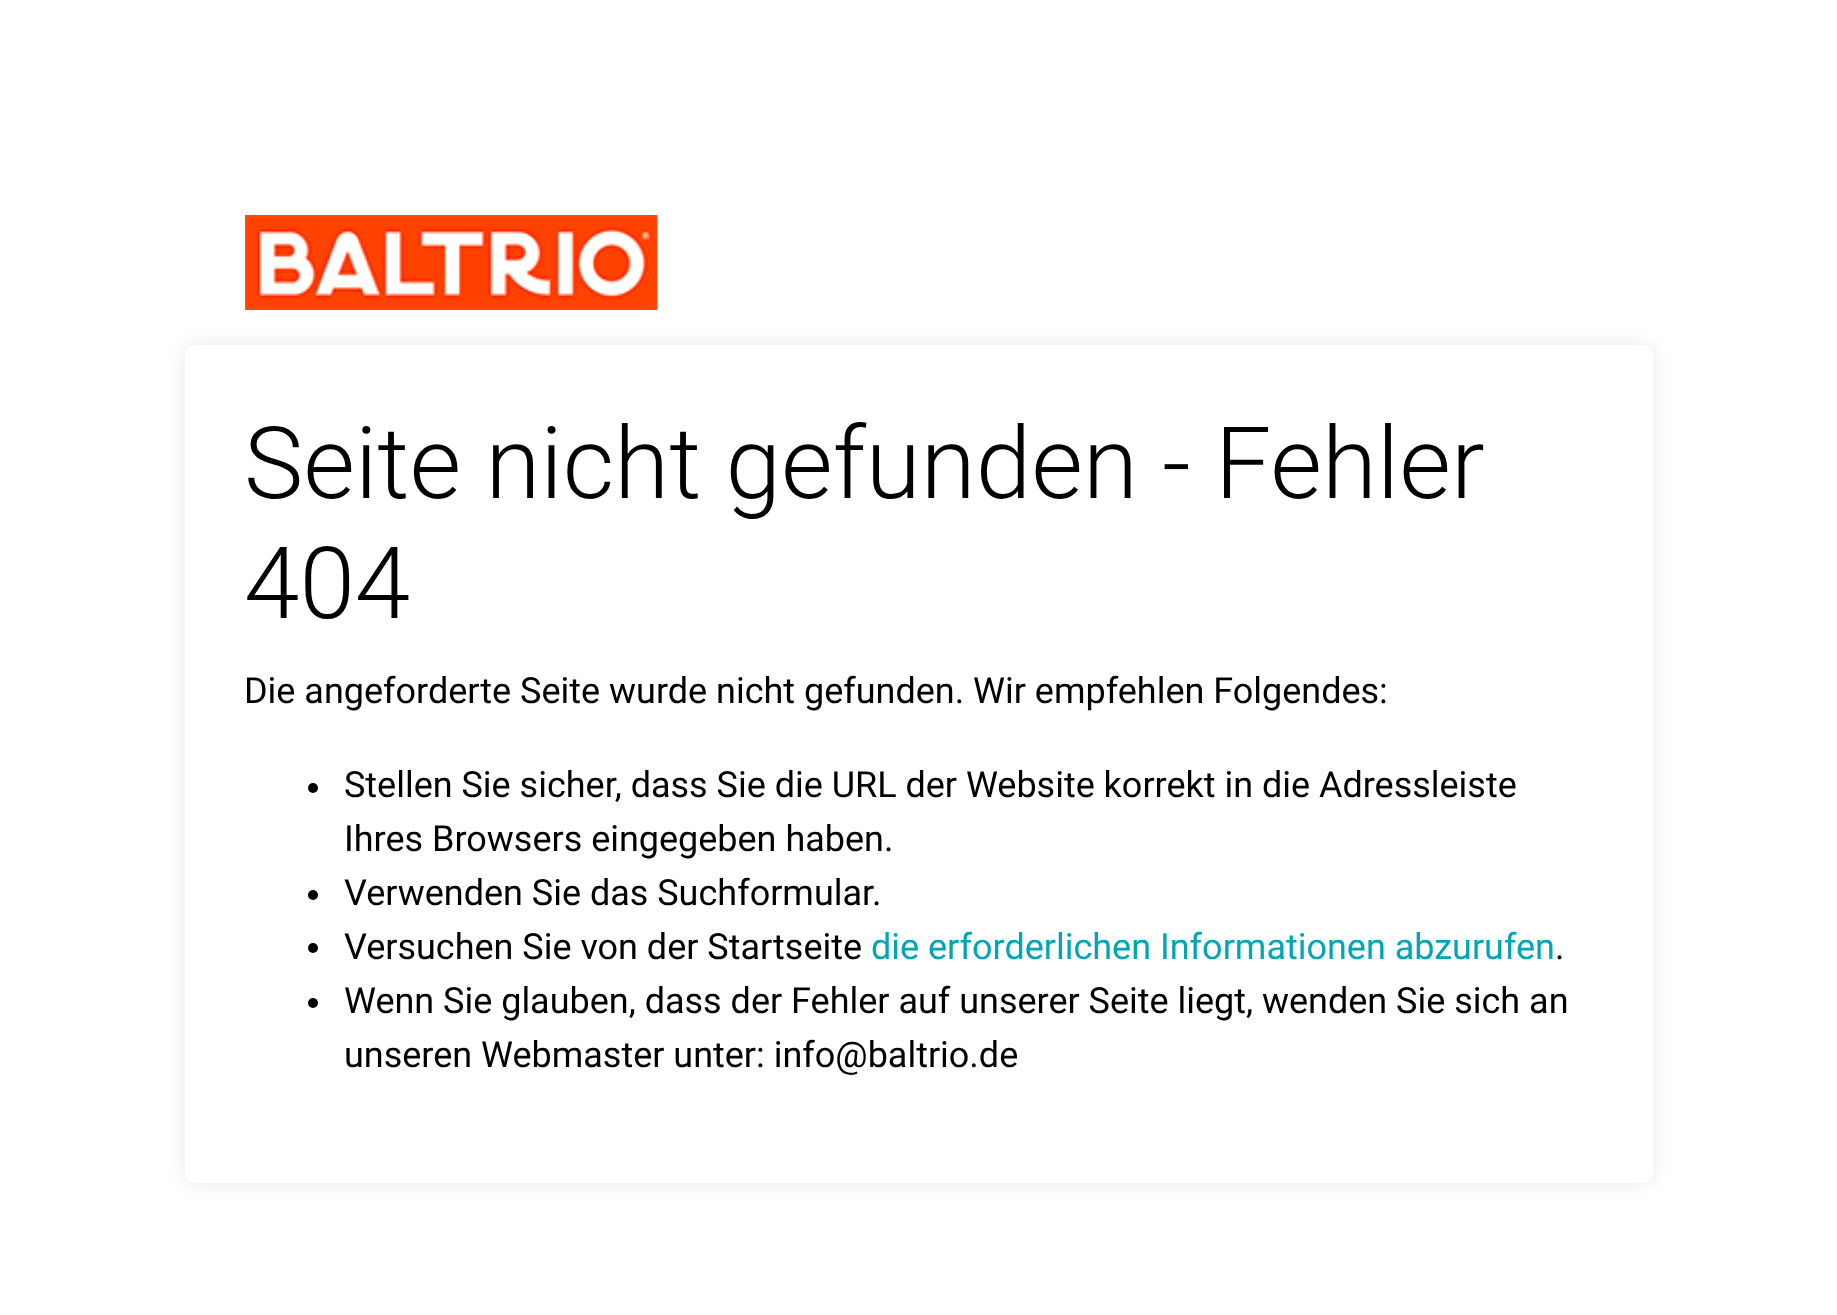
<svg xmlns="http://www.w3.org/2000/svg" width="1837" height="1315">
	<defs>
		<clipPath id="clip1"><path d="M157 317H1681V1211H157ZM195 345H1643C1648.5 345 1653 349.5 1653 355V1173C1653 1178.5 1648.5 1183 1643 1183H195C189.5 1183 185 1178.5 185 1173V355C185 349.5 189.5 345 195 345Z" clip-rule="evenodd" /></clipPath>
	</defs>
	<rect width="100%" height="100%" fill="#FFFFFF" />
	<image x="245" y="215" width="413" height="95" href="assets/img1.png" />
	<g clip-path="url(#clip1)">
		<rect x="185" y="345" width="1468" height="838" rx="10" fill="#000000" fill-opacity="0.09" filter="blur(9px)" />
	</g>
	<g font-family="Roboto" font-size="100" font-weight="300" fill="#000000">
		<text x="244" y="498">Seite nicht gefunden - Fehler</text>
		<text x="244" y="618">404</text>
	</g>
	<text x="244" y="703" font-family="Roboto" font-size="36" fill="#000000">Die angeforderte Seite wurde nicht gefunden. Wir empfehlen Folgendes:</text>
	<circle cx="313" cy="788" r="5" fill="#000000" />
	<g font-family="Roboto" font-size="36" fill="#000000">
		<text x="344" y="797">Stellen Sie sicher, dass Sie die URL der Website korrekt in die Adressleiste</text>
		<text x="344" y="851">Ihres Browsers eingegeben haben.</text>
	</g>
	<circle cx="313" cy="895" r="5" fill="#000000" />
	<text x="344" y="905" font-family="Roboto" font-size="36" fill="#000000">Verwenden Sie das Suchformular.</text>
	<circle cx="313" cy="948" r="5" fill="#000000" />
	<text x="344" y="959" font-family="Roboto" font-size="36" fill="#000000">Versuchen Sie von der Startseite</text>
	<text x="871" y="959" font-family="Roboto" font-size="36" fill="#03A4B3">die erforderlichen Informationen abzurufen</text>
	<text x="1555" y="959" font-family="Roboto" font-size="36" fill="#000000">.</text>
	<circle cx="313" cy="1003" r="5" fill="#000000" />
	<g font-family="Roboto" font-size="36" fill="#000000">
		<text x="344" y="1013">Wenn Sie glauben, dass der Fehler auf unserer Seite liegt, wenden Sie sich an</text>
		<text x="344" y="1067">unseren Webmaster unter: info@baltrio.de</text>
	</g>
</svg>
